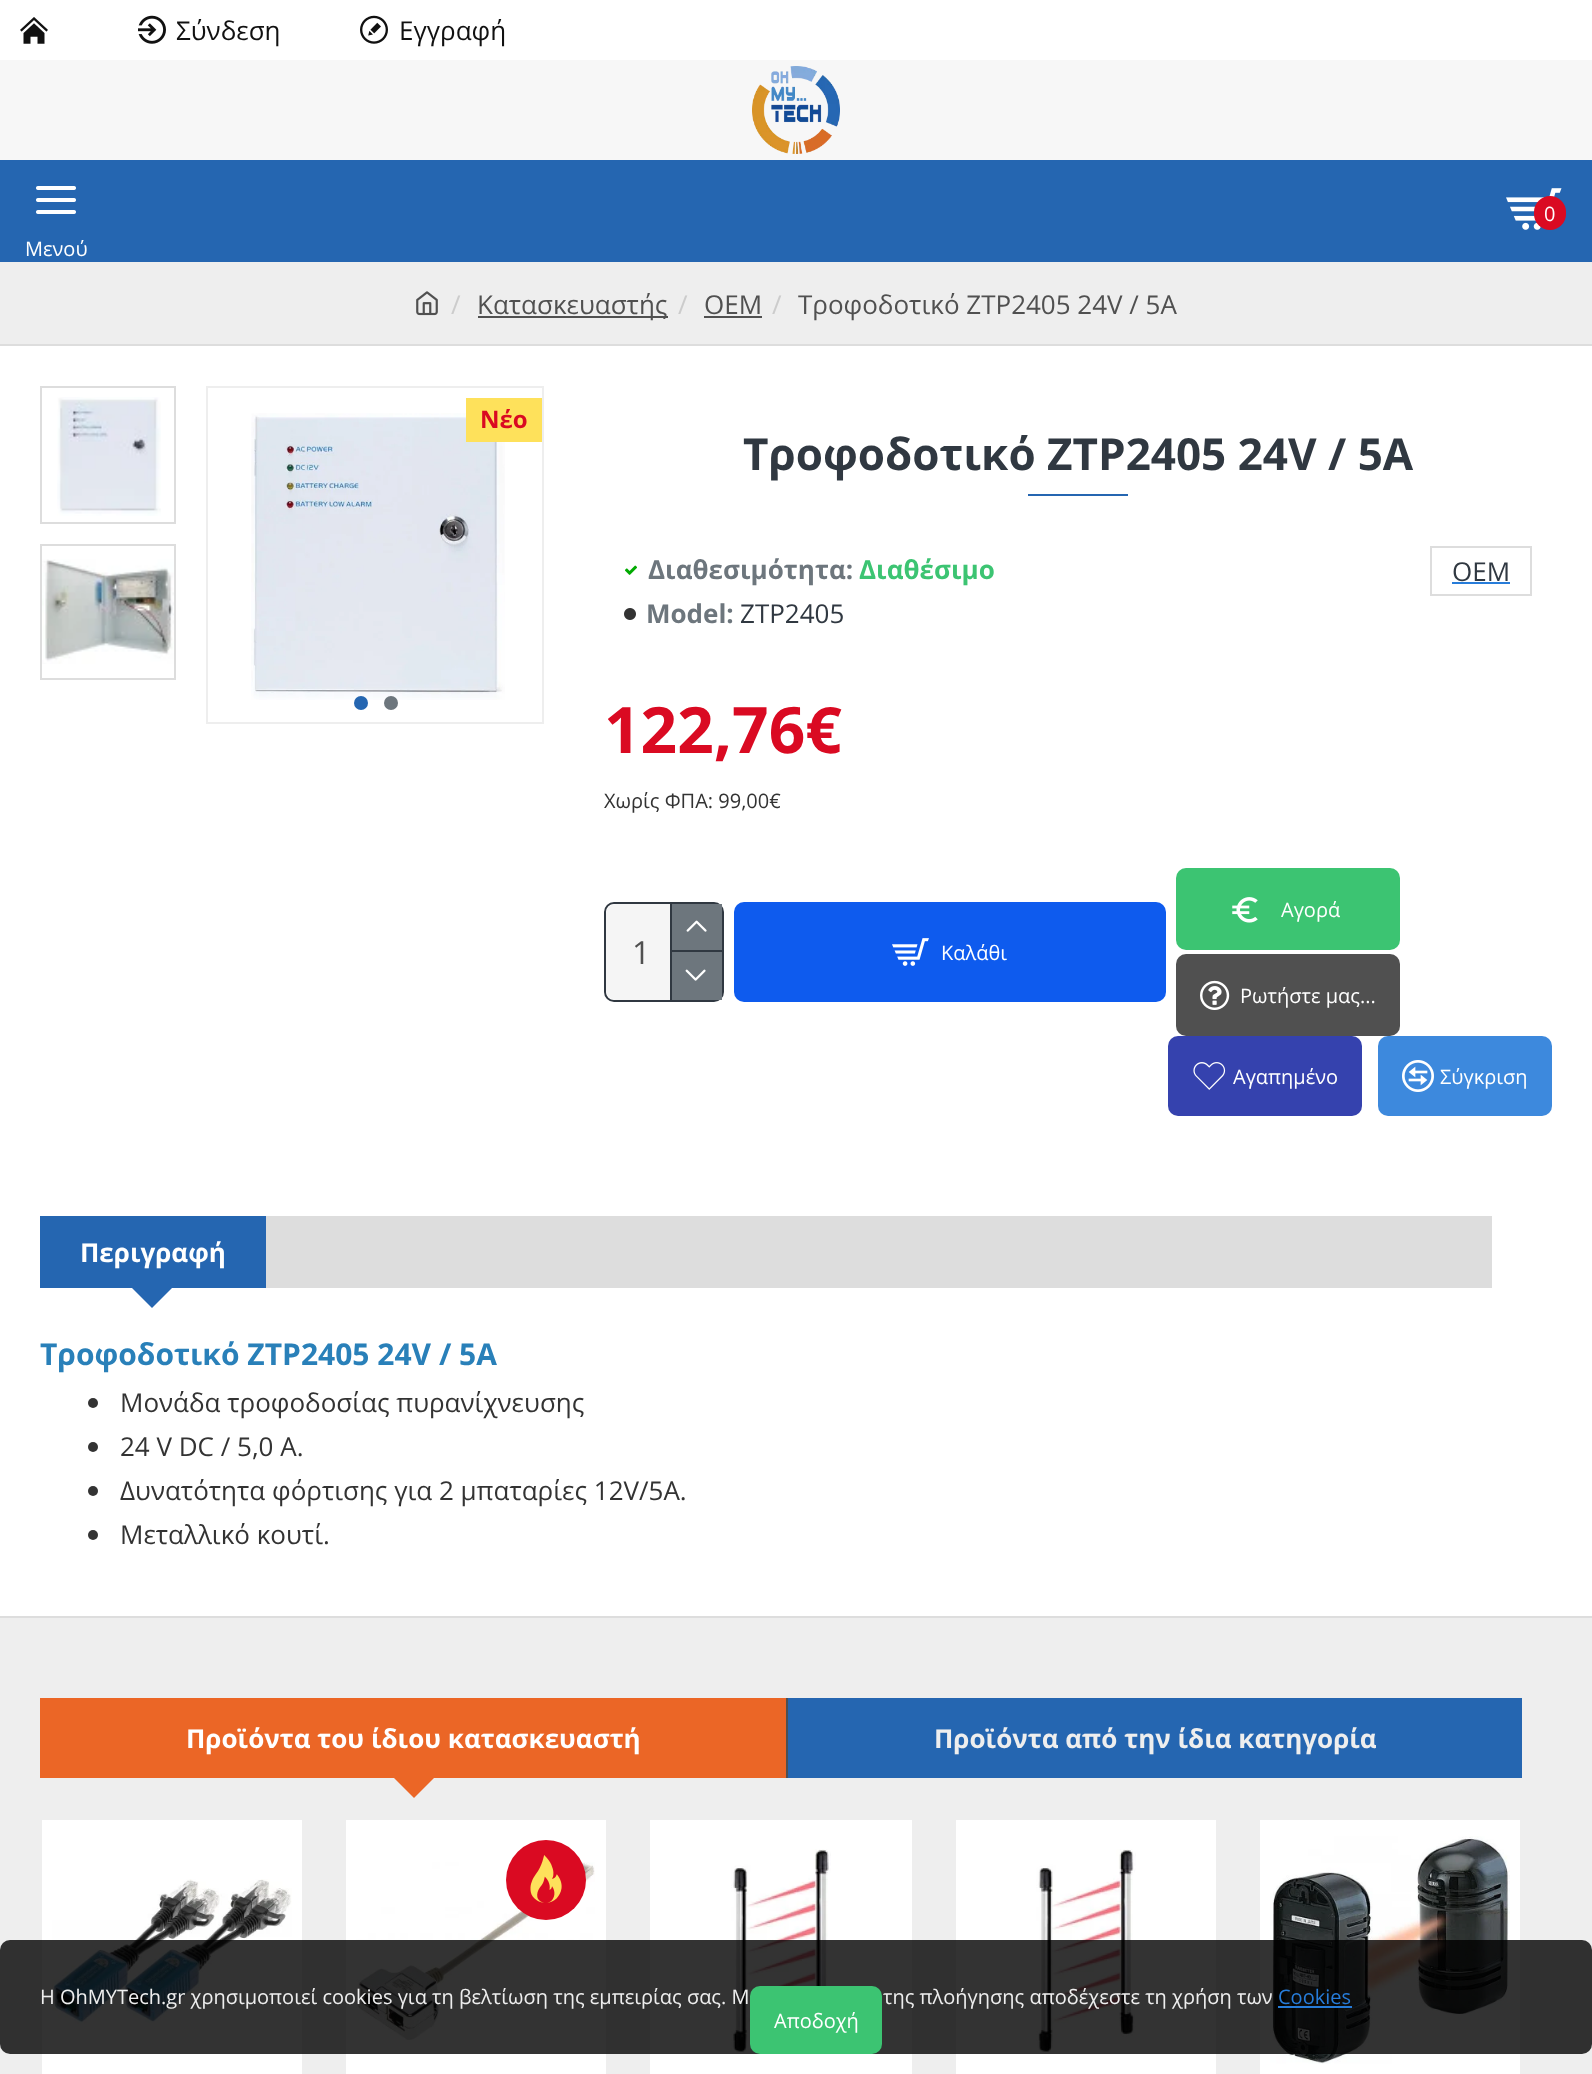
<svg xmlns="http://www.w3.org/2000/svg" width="1592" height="2074">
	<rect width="100%" height="100%" fill="#FFFFFF" />
	<image x="20" y="17" width="28" height="27" href="assets/img1.png" />
	<image x="138" y="15" width="28" height="29" href="assets/img2.png" />
	<text x="176" y="40" font-family="Open Sans" font-size="26" fill="#111111">Σύνδεση</text>
	<image x="360" y="15" width="28" height="29" href="assets/img3.png" />
	<text x="399" y="40" font-family="Open Sans" font-size="26" fill="#111111">Εγγραφή</text>
	<rect x="0" y="60" width="1592" height="100" fill="#F7F7F7" />
	<image x="752" y="66" width="88" height="88" href="assets/img4.png" />
	<rect x="0" y="160" width="1592" height="102" fill="#2566B1" />
	<image x="1506" y="188" width="56" height="42" href="assets/img5.png" />
	<rect x="1534" y="196" width="32" height="34" rx="16" fill="#DA0A22" />
	<text x="1544" y="221" font-family="Open Sans" font-size="20" fill="#FFFFFF">0</text>
	<image x="36" y="186" width="40" height="28" href="assets/img6.png" />
	<text x="25" y="256" font-family="Open Sans" font-size="20" fill="#FFFFFF">Μενού</text>
	<rect x="0" y="262" width="1592" height="82" fill="#EEEEEE" />
	<rect x="0" y="344" width="1592" height="2" fill="#DDDDDD" />
	<image x="416" y="291" width="22" height="25" href="assets/img7.png" />
	<text x="451" y="314" font-family="Open Sans" font-size="26" fill="#CCCCCC">/</text>
	<rect x="478" y="316" width="190" height="2" fill="#505050" />
	<text x="477" y="314" font-family="Open Sans" font-size="26" fill="#505050">Κατασκευαστής</text>
	<text x="678" y="314" font-family="Open Sans" font-size="26" fill="#CCCCCC">/</text>
	<text x="704" y="314" font-family="Open Sans" font-size="26" fill="#505050">OEM</text>
	<rect x="704" y="316" width="58" height="2" fill="#505050" />
	<text x="772" y="314" font-family="Open Sans" font-size="26" fill="#CCCCCC">/</text>
	<text x="798" y="314" font-family="Open Sans" font-size="26" fill="#505050">Τροφοδοτικό ZTP2405 24V / 5A</text>
	<rect x="41" y="387" width="134" height="136" fill="none" stroke="#DDDDDD" stroke-width="2" />
	<image x="57" y="397" width="104" height="119" href="assets/img8.png" />
	<rect x="41" y="545" width="134" height="134" fill="none" stroke="#DDDDDD" stroke-width="2" />
	<image x="42" y="559" width="132" height="105" href="assets/img9.png" />
	<rect x="207" y="387" width="336" height="336" fill="none" stroke="#EEEEEE" stroke-width="2" />
	<image x="251" y="413" width="254" height="287" href="assets/img10.png" />
	<rect x="466" y="398" width="76" height="44" fill="#FEE15B" />
	<text x="480" y="428" font-family="Open Sans" font-size="24" font-weight="700" fill="#DA0A22">Νέο</text>
	<circle cx="361" cy="703" r="7" fill="#2566B1" />
	<circle cx="391" cy="703" r="7" fill="#6D767D" />
	<text x="743" y="470" font-family="Open Sans" font-size="44" font-weight="700" fill="#303841">Τροφοδοτικό ZTP2405 24V / 5A</text>
	<rect x="1028" y="494" width="100" height="2" fill="#2566B1" />
	<image x="625" y="565" width="12" height="10" href="assets/img11.png" />
	<text x="648" y="579" font-family="Open Sans" font-size="26" font-weight="700" fill="#6D767D">Διαθεσιμότητα:</text>
	<text x="859" y="579" font-family="Open Sans" font-size="26" font-weight="700" fill="#3CC472">Διαθέσιμο</text>
	<image x="624" y="608" width="12" height="12" href="assets/img12.png" />
	<text x="646" y="623" font-family="Open Sans" font-size="26" font-weight="700" fill="#6D767D">Model:</text>
	<text x="740" y="623" font-family="Open Sans" font-size="26" fill="#303841">ZTP2405</text>
	<rect x="1431" y="547" width="100" height="48" fill="none" stroke="#DDDDDD" stroke-width="2" />
	<text x="1452" y="581" font-family="Open Sans" font-size="26" fill="#303841">OEM</text>
	<rect x="1452" y="582" width="58" height="2" fill="#277CD9" />
	<text x="604" y="753" font-family="Open Sans" font-size="64" font-weight="700" fill="#DA0A22">122,76€</text>
	<text x="604" y="808" font-family="Open Sans" font-size="20" fill="#333333">Χωρίς ΦΠΑ: 99,00€</text>
	<rect x="605" y="903" width="118" height="98" rx="9" fill="none" stroke="#303841" stroke-width="2" />
	<rect x="606" y="904" width="116" height="96" rx="10" fill="#F5F5F5" />
	<text x="632" y="964" font-family="Open Sans" font-size="32" fill="#505050">1</text>
	<rect x="670" y="904" width="2" height="96" fill="#303841" />
	<rect x="672" y="904" width="50" height="46" fill="#6D767D" />
	<rect x="672" y="950" width="50" height="2" fill="#303841" />
	<image x="686" y="920" width="21" height="12" href="assets/img13.png" />
	<rect x="672" y="952" width="50" height="48" fill="#6D767D" />
	<image x="685" y="969" width="21" height="12" href="assets/img14.png" />
	<rect x="734" y="902" width="432" height="100" rx="10" fill="#0E5BEE" />
	<image x="892" y="938" width="37" height="28" href="assets/img15.png" />
	<text x="941" y="960" font-family="Open Sans" font-size="20" fill="#FFFFFF">Καλάθι</text>
	<rect x="1176" y="868" width="224" height="82" rx="10" fill="#3CC472" />
	<image x="1232" y="897" width="26" height="26" href="assets/img16.png" />
	<text x="1281" y="917" font-family="Open Sans" font-size="20" fill="#FFFFFF">Αγορά</text>
	<rect x="1176" y="954" width="224" height="82" rx="10" fill="#505050" />
	<image x="1200" y="980" width="30" height="30" href="assets/img17.png" />
	<text x="1240" y="1003" font-family="Open Sans" font-size="20" fill="#FFFFFF">Ρωτήστε μας...</text>
	<rect x="1168" y="1036" width="194" height="80" rx="10" fill="#3542AE" />
	<image x="1193" y="1062" width="33" height="28" href="assets/img18.png" />
	<text x="1233" y="1084" font-family="Open Sans" font-size="20" fill="#FFFFFF">Αγαπημένο</text>
	<rect x="1378" y="1036" width="174" height="80" rx="10" fill="#3D89DD" />
	<image x="1402" y="1060" width="32" height="32" href="assets/img19.png" />
	<text x="1440" y="1084" font-family="Open Sans" font-size="20" fill="#FFFFFF">Σύγκριση</text>
	<rect x="266" y="1216" width="1226" height="72" fill="#DDDDDD" />
	<rect x="40" y="1216" width="226" height="72" fill="#2566B1" />
	<text x="80" y="1262" font-family="Open Sans" font-size="26" font-weight="700" fill="#FFFFFF">Περιγραφή</text>
	<path d="M132 1288H172L152 1308Z" fill="#2566B1" />
	<text x="40" y="1365" font-family="Open Sans" font-size="30" font-weight="700" fill="#2980B9">Τροφοδοτικό ZTP2405 24V / 5A</text>
	<circle cx="93" cy="1403" r="5" fill="#333333" />
	<text x="120" y="1412" font-family="Open Sans" font-size="26" fill="#333333">Μονάδα τροφοδοσίας πυρανίχνευσης</text>
	<circle cx="93" cy="1447" r="5" fill="#333333" />
	<text x="120" y="1456" font-family="Open Sans" font-size="26" fill="#333333">24 V DC / 5,0 A.</text>
	<circle cx="93" cy="1491" r="5" fill="#333333" />
	<text x="120" y="1500" font-family="Open Sans" font-size="26" fill="#333333">Δυνατότητα φόρτισης για 2 μπαταρίες 12V/5A.</text>
	<circle cx="93" cy="1535" r="5" fill="#333333" />
	<text x="120" y="1544" font-family="Open Sans" font-size="26" fill="#333333">Μεταλλικό κουτί.</text>
	<rect x="0" y="1618" width="1592" height="456" fill="#EEEEEE" />
	<rect x="0" y="1616" width="1592" height="2" fill="#DDDDDD" />
	<rect x="40" y="1698" width="746" height="80" fill="#EB6626" />
	<text x="186" y="1748" font-family="Open Sans" font-size="26" font-weight="700" fill="#FFFFFF">Προϊόντα του ίδιου κατασκευαστή</text>
	<path d="M394 1778H434L414 1798Z" fill="#EB6626" />
	<rect x="786" y="1698" width="2" height="80" fill="#505050" />
	<rect x="788" y="1698" width="734" height="80" fill="#2566B1" />
	<text x="934" y="1748" font-family="Open Sans" font-size="26" font-weight="700" fill="#EEEEEE">Προϊόντα από την ίδια κατηγορία</text>
	<rect x="42" y="1820" width="260" height="254" fill="#FFFFFF" />
	<image x="52" y="1879" width="240" height="145" href="assets/img20.png" />
	<rect x="346" y="1820" width="260" height="254" fill="#FFFFFF" />
	<image x="356" y="1862" width="239" height="178" href="assets/img22.png" />
	<circle cx="546" cy="1880" r="40" fill="#DA0A22" />
	<image x="530" y="1855" width="32" height="48" href="assets/img21.png" />
	<rect x="650" y="1820" width="262" height="254" fill="#FFFFFF" />
	<image x="731" y="1849" width="100" height="204" href="assets/img23.png" />
	<rect x="956" y="1820" width="260" height="254" fill="#FFFFFF" />
	<image x="1036" y="1849" width="100" height="204" href="assets/img24.png" />
	<rect x="1260" y="1820" width="260" height="254" fill="#FFFFFF" />
	<image x="1270" y="1836" width="240" height="228" href="assets/img25.png" />
	<rect x="0" y="1940" width="1592" height="114" rx="10" fill="#000000" fill-opacity="0.8" />
	<g font-family="Open Sans" font-size="20" fill="#EEEEEE">
		<text x="40" y="2004">Η OhMYTech.gr χρησιμοποιεί cookies για τη βελτίωση της εμπειρίας σας. Μ</text>
		<text x="883" y="2004">της πλοήγησης αποδέχεστε τη χρήση των</text>
	</g>
	<text x="1278" y="2004" font-family="Open Sans" font-size="20" fill="#277CD9">Cookies</text>
	<rect x="1278" y="2006" width="74" height="2" fill="#277CD9" />
	<rect x="750" y="1986" width="132" height="68" rx="10" fill="#3CC472" />
	<text x="774" y="2028" font-family="Open Sans" font-size="20" fill="#FFFFFF">Αποδοχή</text>
</svg>
